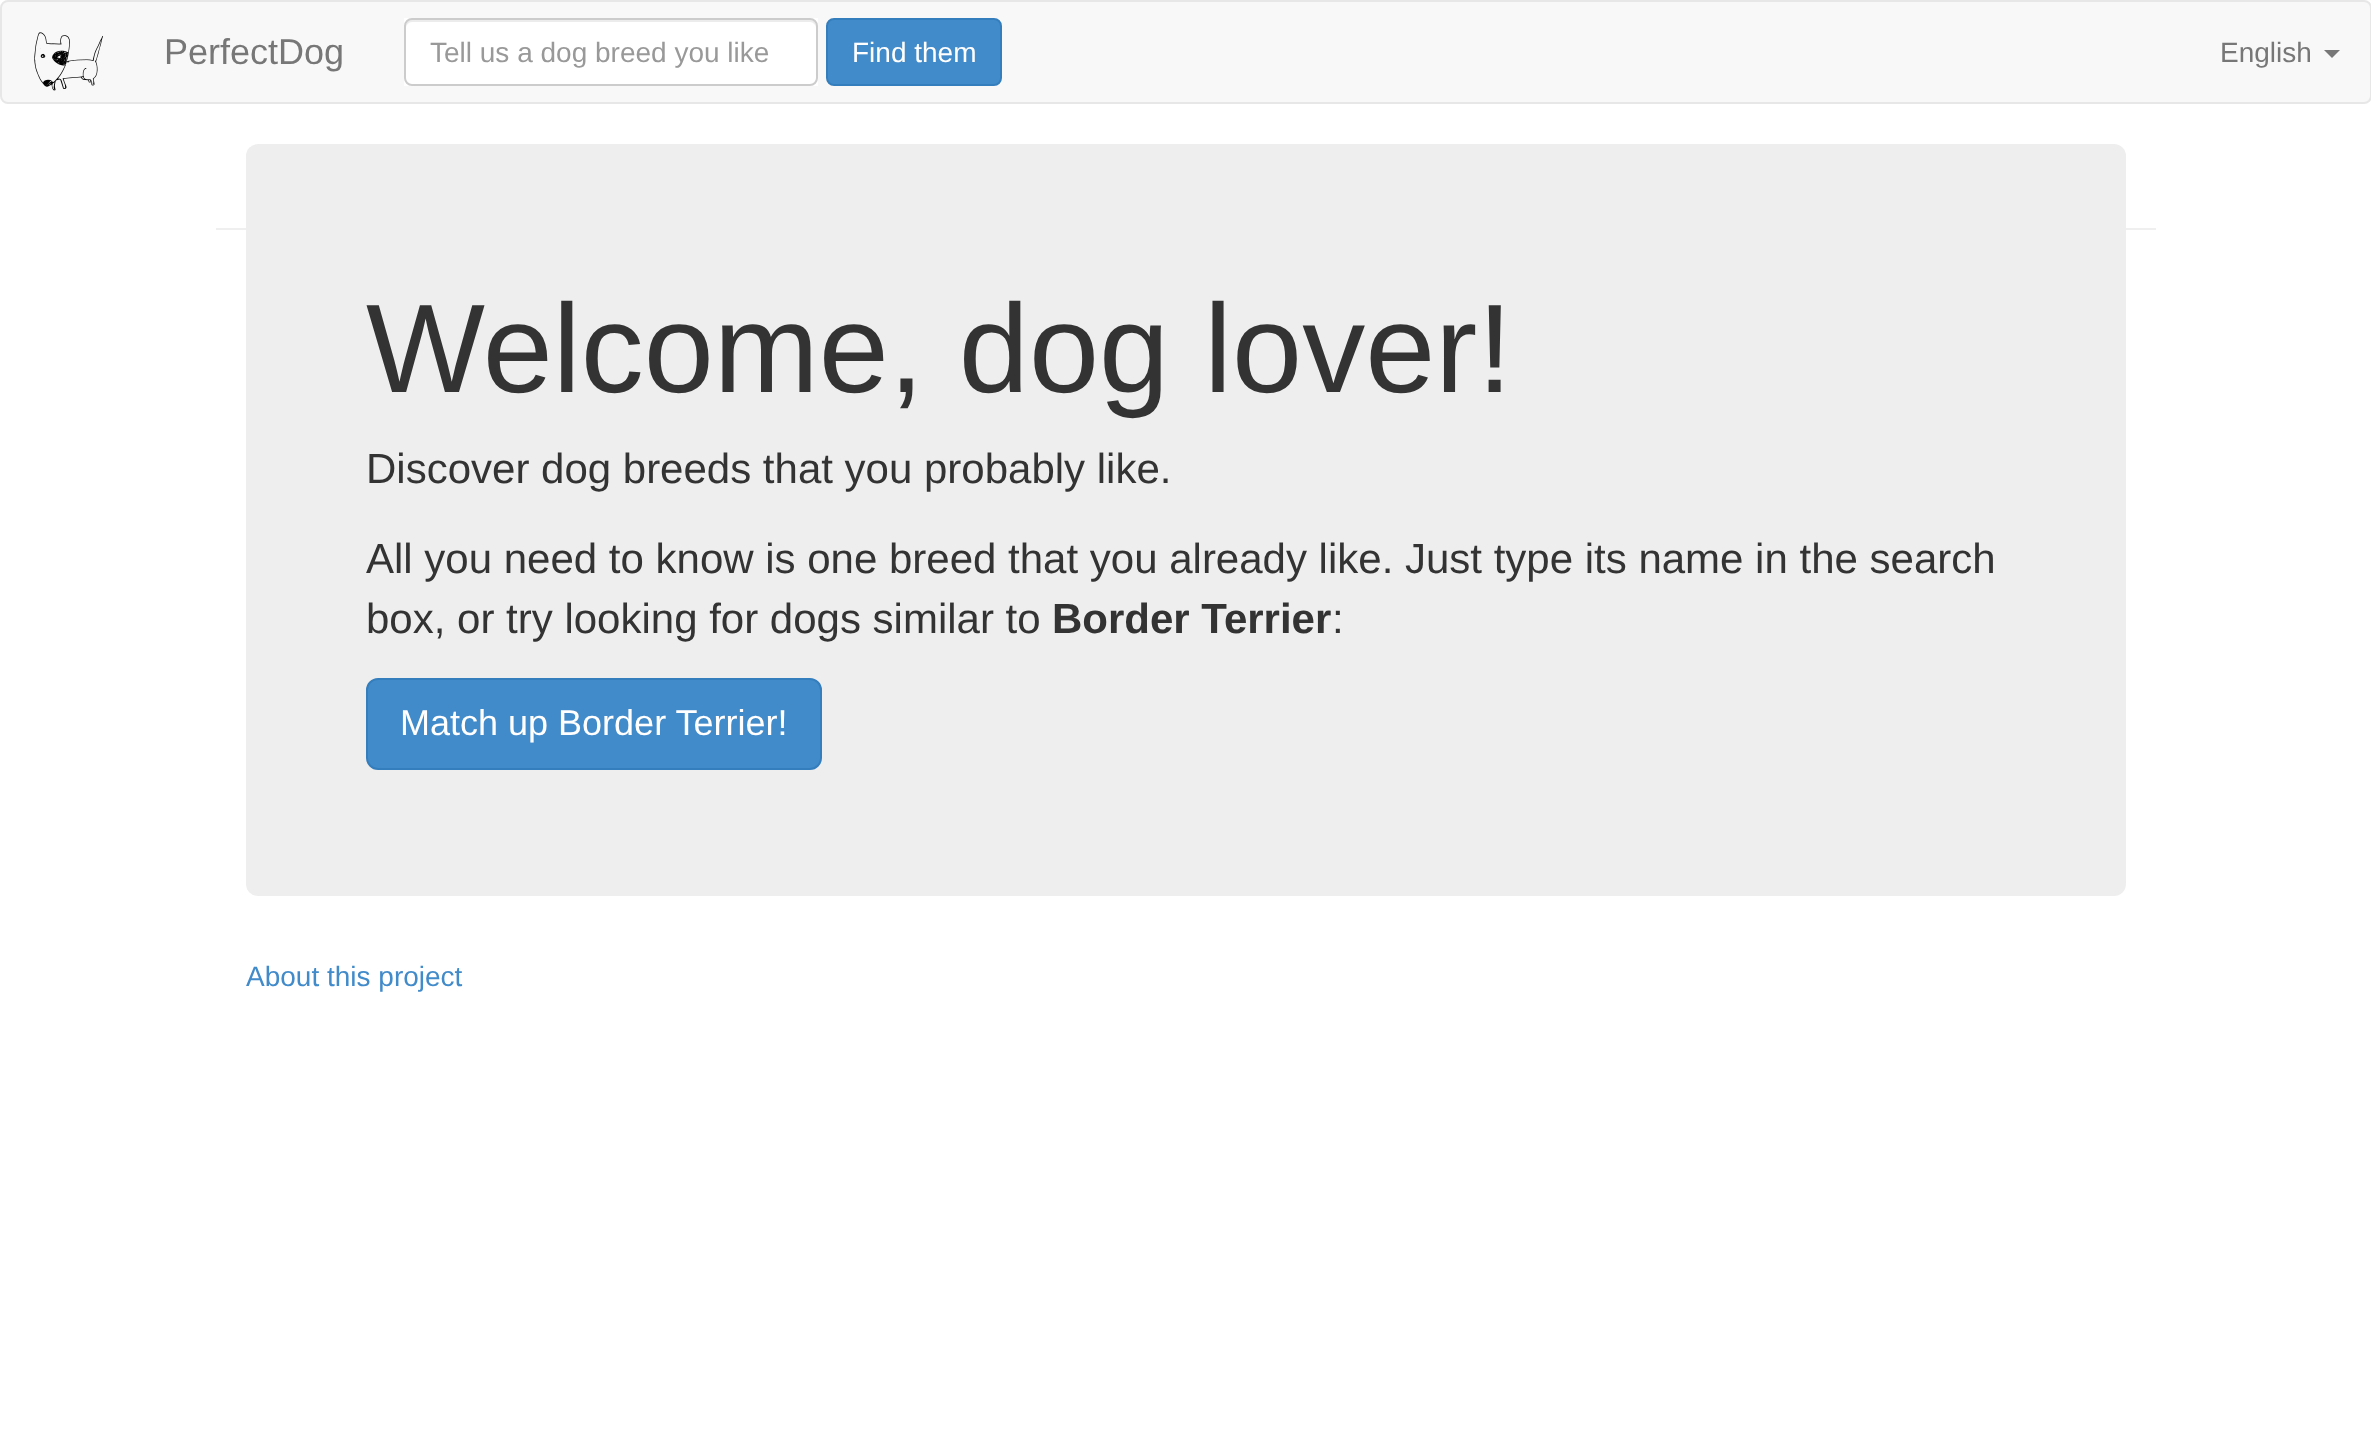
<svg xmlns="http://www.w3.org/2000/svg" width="2371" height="1453">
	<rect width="100%" height="100%" fill="#FFFFFF" />
	<rect x="1" y="1" width="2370" height="102" rx="7" fill="#F8F8F8" stroke="#E7E7E7" stroke-width="2" />
	<image x="34" y="32" width="69" height="59" href="assets/img1.png" />
	<text x="164" y="64" font-family="Liberation Sans" font-size="36" fill="#777777">PerfectDog</text>
	<rect x="404" y="18" width="414" height="68" fill="#FFFFFF" />
	<path d="M412 22H810C813 22 816 25 816 28C816 24 815 20 810 20H412C407 20 406 24 406 28C406 25 409 22 412 22Z" fill="#ECECEC" />
	<rect x="405" y="19" width="412" height="66" rx="7" fill="none" stroke="#CCCCCC" stroke-width="2" />
	<text x="430" y="62" font-family="Liberation Sans" font-size="28" fill="#999999">Tell us a dog breed you like</text>
	<rect x="827" y="19" width="174" height="66" rx="7" fill="#428BCA" stroke="#357EBD" stroke-width="2" />
	<text x="852" y="62" font-family="Liberation Sans" font-size="28" fill="#FFFFFF">Find them</text>
	<text x="2220" y="62" font-family="Liberation Sans" font-size="28" fill="#777777">English</text>
	<path d="M2324 50H2340L2332 58Z" fill="#777777" />
	<rect x="216" y="228" width="1940" height="2" fill="#EFEFEF" />
	<rect x="246" y="144" width="1880" height="752" rx="12" fill="#EEEEEE" />
	<text x="366" y="392" font-family="Liberation Sans" font-size="126" fill="#333333">Welcome, dog lover!</text>
	<g font-family="Liberation Sans" font-size="42" fill="#333333">
		<text x="366" y="483">Discover dog breeds that you probably like.</text>
		<text x="366" y="573">All you need to know is one breed that you already like. Just type its name in the search</text>
		<text x="366" y="633">box, or try looking for dogs similar to</text>
	</g>
	<text x="1052" y="633" font-family="Liberation Sans" font-size="42" font-weight="700" fill="#333333">Border Terrier</text>
	<text x="1332" y="633" font-family="Liberation Sans" font-size="42" fill="#333333">:</text>
	<rect x="367" y="679" width="454" height="90" rx="11" fill="#428BCA" stroke="#357EBD" stroke-width="2" />
	<text x="400" y="735" font-family="Liberation Sans" font-size="36" fill="#FFFFFF">Match up Border Terrier!</text>
	<text x="246" y="986" font-family="Liberation Sans" font-size="28" fill="#428BCA">About this project</text>
</svg>
